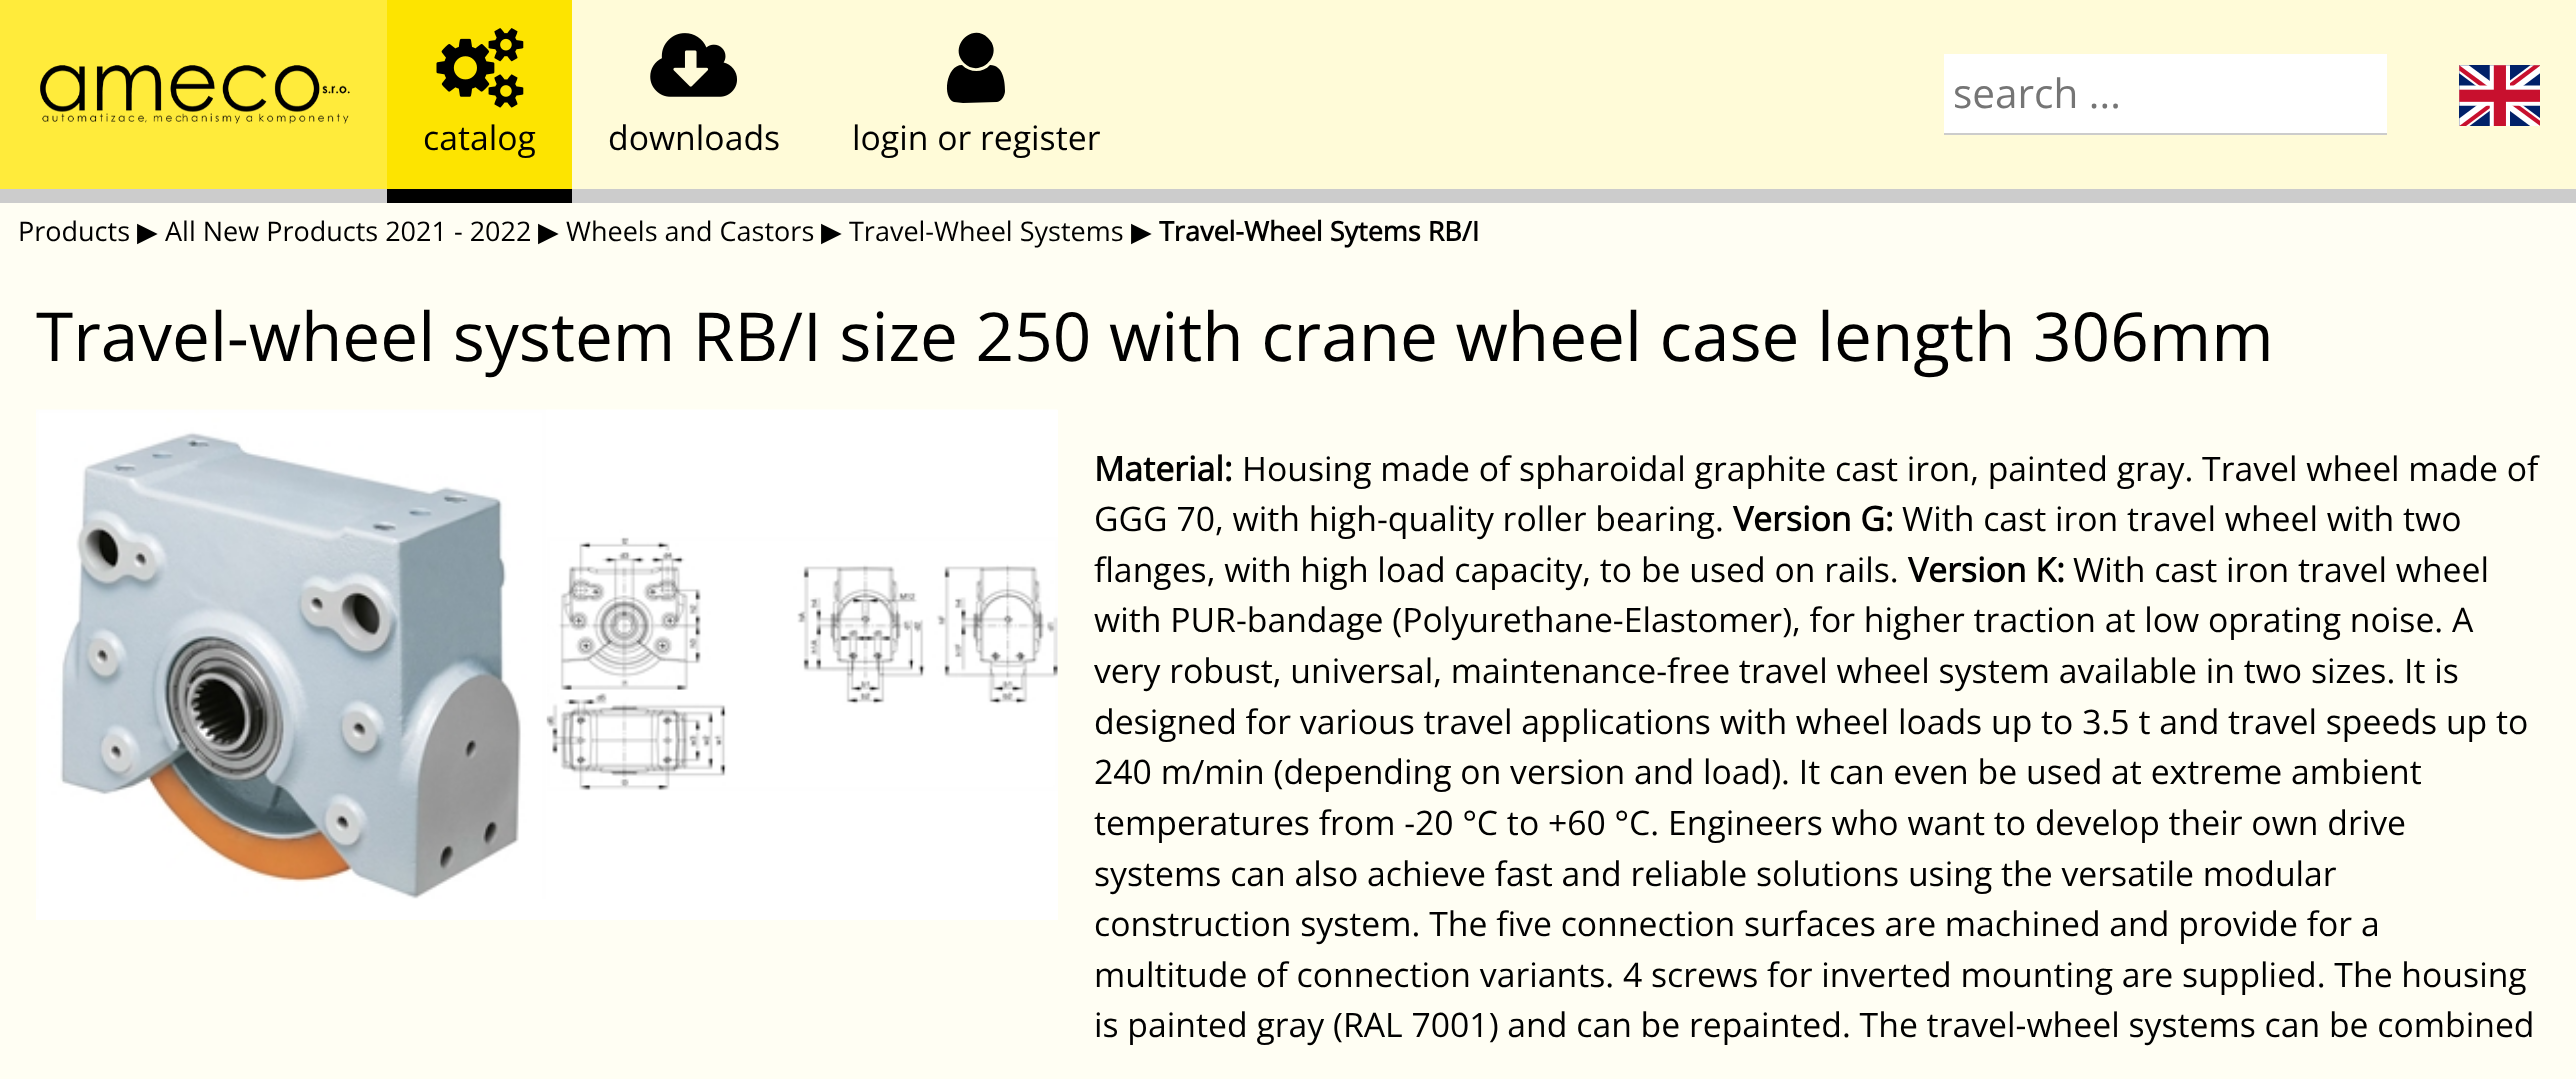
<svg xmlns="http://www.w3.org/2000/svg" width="2576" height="1079">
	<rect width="100%" height="100%" fill="#FFFEF3" />
	<rect x="1136" y="0" width="1440" height="189" fill="#FFFBD8" />
	<rect x="0" y="0" width="387" height="189" fill="#FFEB3B" />
	<rect x="0" y="189" width="387" height="14" fill="#CCCCCC" />
	<image x="40" y="65" width="310" height="59" href="assets/img1.png" />
	<rect x="1944" y="54" width="443" height="79" fill="#FFFFFF" />
	<rect x="1944" y="133" width="443" height="2" fill="#CCCCCC" />
	<text x="1953" y="108" font-family="Open Sans" font-size="40.5" fill="#757575">search ...</text>
	<image x="2459" y="65" width="81" height="61" href="assets/img2.png" />
	<rect x="387" y="0" width="185" height="189" fill="#FDE400" />
	<rect x="387" y="189" width="185" height="14" fill="#000000" />
	<image x="436" y="28" width="88" height="80" href="assets/img3.png" />
	<text x="423" y="150" font-family="Open Sans" font-size="33.75" fill="#000000">catalog</text>
	<rect x="572" y="0" width="564" height="189" fill="#FFFBD8" />
	<rect x="572" y="189" width="564" height="14" fill="#CCCCCC" />
	<image x="650" y="33" width="87" height="64" href="assets/img4.png" />
	<text x="608" y="150" font-family="Open Sans" font-size="33.75" fill="#000000">downloads</text>
	<path d="M1005 91C1005 95 1002 101 997 102L963 103L954 102C942 98 946 65 962 65C970 73 983 73 990 65C1003 65 1005 81 1005 91ZM988 38C1005 54 980 79 964 63C948 47 972 22 988 38Z" fill="#000000" />
	<text x="852" y="150" font-family="Open Sans" font-size="33.75" fill="#000000">login or register</text>
	<rect x="1136" y="189" width="1440" height="14" fill="#CCCCCC" />
	<text x="18" y="241" font-family="Open Sans" font-size="27" fill="#000000">Products</text>
	<text x="137" y="241" font-family="DejaVu Sans" font-size="27" fill="#000000">▶</text>
	<text x="165" y="241" font-family="Open Sans" font-size="27" fill="#000000">All New Products 2021 - 2022</text>
	<text x="538" y="241" font-family="DejaVu Sans" font-size="27" fill="#000000">▶</text>
	<text x="566" y="241" font-family="Open Sans" font-size="27" fill="#000000">Wheels and Castors</text>
	<text x="821" y="241" font-family="DejaVu Sans" font-size="27" fill="#000000">▶</text>
	<text x="849" y="241" font-family="Open Sans" font-size="27" fill="#000000">Travel-Wheel Systems</text>
	<text x="1131" y="241" font-family="DejaVu Sans" font-size="27" fill="#000000">▶</text>
	<text x="1159" y="241" font-family="Open Sans" font-size="27" font-weight="700" fill="#000000">Travel-Wheel Sytems RB/I</text>
	<text x="36" y="361" font-family="Open Sans" font-size="67.5" fill="#000000">Travel-wheel system RB/I size 250 with crane wheel case length 306mm</text>
	<rect x="36" y="410" width="1022" height="510" fill="#FFFFFF" />
	<image x="36" y="409" width="511" height="490" href="assets/img5.png" />
	<image x="546" y="409" width="512" height="382" href="assets/img6.png" />
	<text x="1094" y="481" font-family="Open Sans" font-size="33.75" font-weight="700" fill="#000000">Material:</text>
	<g font-family="Open Sans" font-size="33.75" fill="#000000">
		<text x="1242" y="481">Housing made of spharoidal graphite cast iron, painted gray. Travel wheel made of</text>
		<text x="1094" y="531">GGG 70, with high-quality roller bearing.</text>
	</g>
	<text x="1733" y="531" font-family="Open Sans" font-size="33.75" font-weight="700" fill="#000000">Version G:</text>
	<g font-family="Open Sans" font-size="33.75" fill="#000000">
		<text x="1902" y="531">With cast iron travel wheel with two</text>
		<text x="1094" y="582">flanges, with high load capacity, to be used on rails.</text>
	</g>
	<text x="1908" y="582" font-family="Open Sans" font-size="33.75" font-weight="700" fill="#000000">Version K:</text>
	<g font-family="Open Sans" font-size="33.75" fill="#000000">
		<text x="2073" y="582">With cast iron travel wheel</text>
		<text x="1094" y="632">with PUR-bandage (Polyurethane-Elastomer), for higher traction at low oprating noise. A</text>
		<text x="1094" y="683">very robust, universal, maintenance-free travel wheel system available in two sizes. It is</text>
		<text x="1094" y="734">designed for various travel applications with wheel loads up to 3.5 t and travel speeds up to</text>
		<text x="1094" y="784">240 m/min (depending on version and load). It can even be used at extreme ambient</text>
		<text x="1094" y="835">temperatures from -20 °C to +60 °C. Engineers who want to develop their own drive</text>
		<text x="1094" y="886">systems can also achieve fast and reliable solutions using the versatile modular</text>
		<text x="1094" y="936">construction system. The five connection surfaces are machined and provide for a</text>
		<text x="1094" y="987">multitude of connection variants. 4 screws for inverted mounting are supplied. The housing</text>
		<text x="1094" y="1037">is painted gray (RAL 7001) and can be repainted. The travel-wheel systems can be combined</text>
	</g>
</svg>
